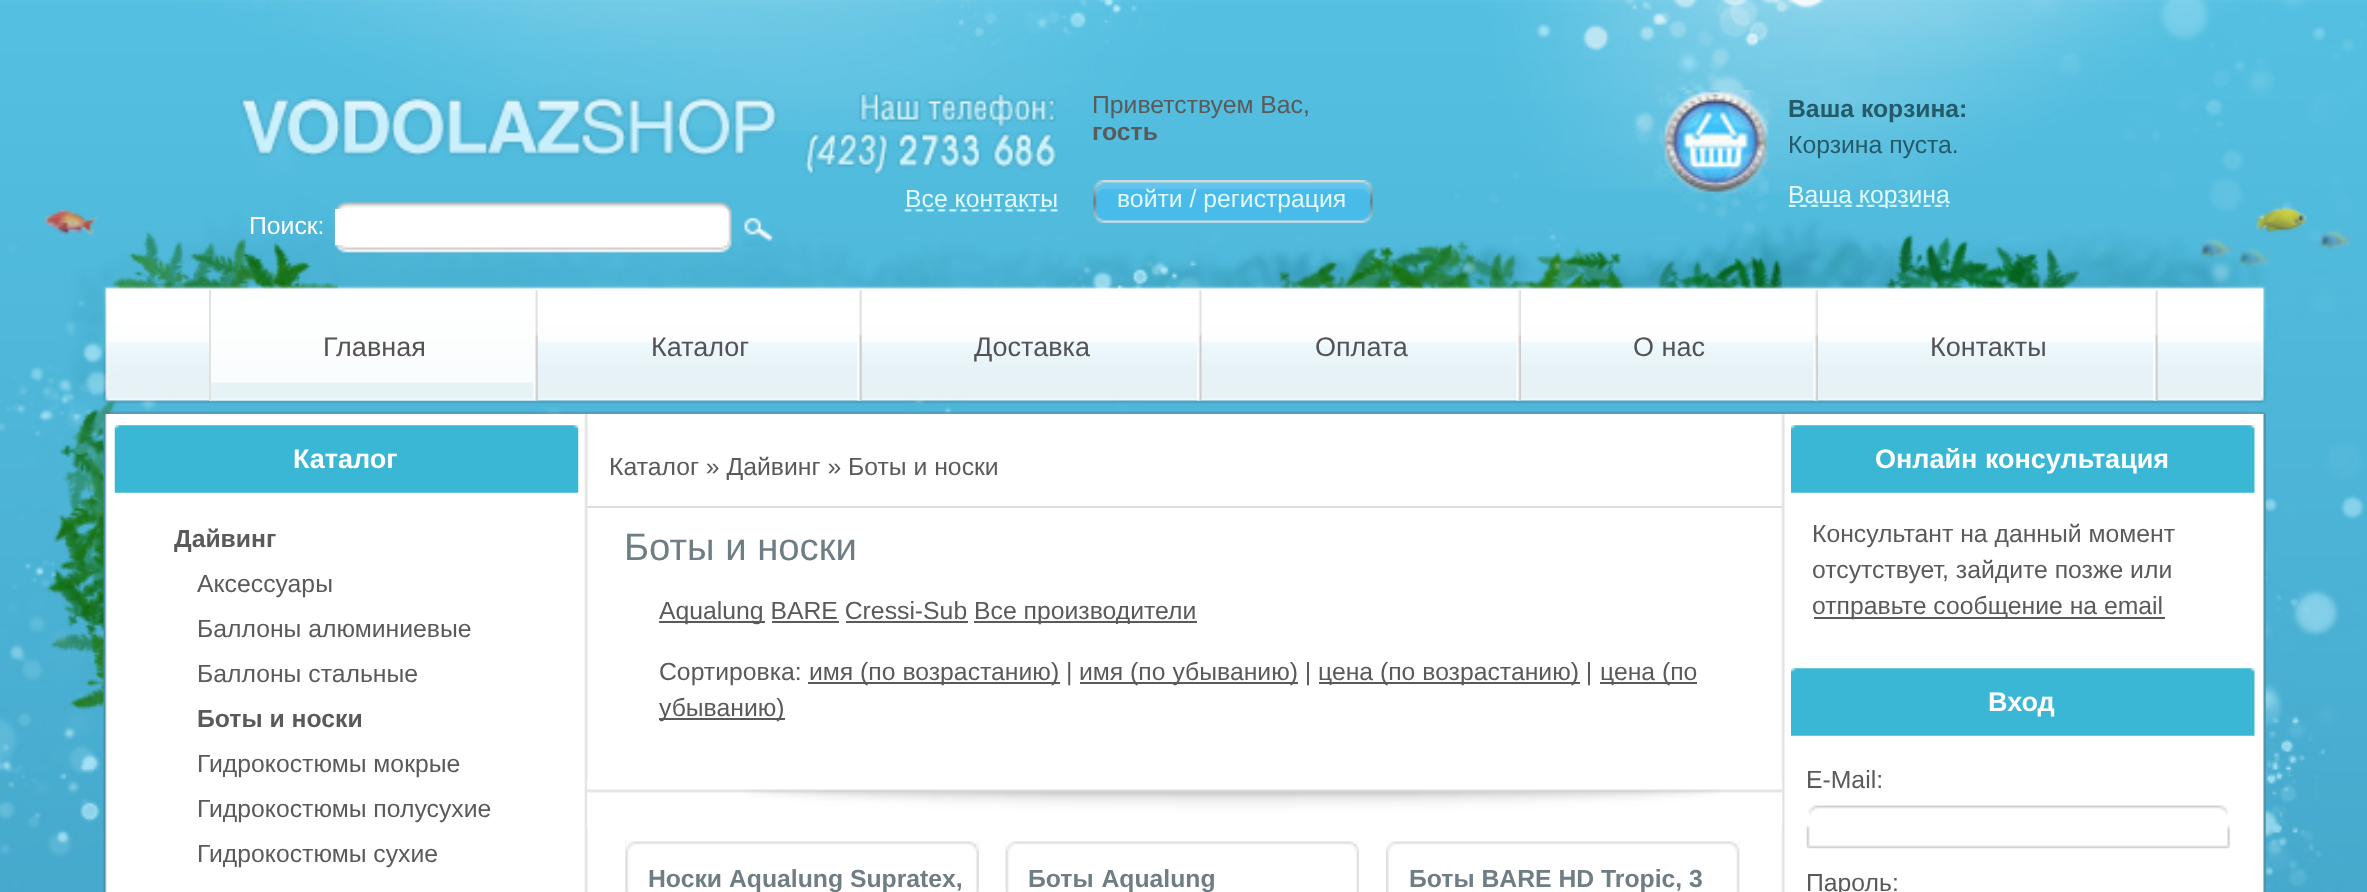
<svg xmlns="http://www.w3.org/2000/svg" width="2367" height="892">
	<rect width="100%" height="100%" fill="#FFFFFF" />
	<image x="2365" y="0" width="2" height="892" href="assets/img1.png" />
	<image x="0" y="0" width="2365" height="892" href="assets/img2.png" />
	<image x="805" y="92" width="252" height="84" href="assets/img3.png" />
	<text x="905" y="207" font-family="Liberation Sans" font-size="24.75" fill="#E1FAFF">Все контакты</text>
	<image x="904" y="209" width="155" height="3" href="assets/img4.png" />
	<text x="1092" y="113" font-family="Liberation Sans" font-size="24.75" fill="#5A5A5A">Приветствуем Вас,</text>
	<text x="1092" y="140" font-family="Liberation Sans" font-size="24.75" font-weight="700" fill="#5A5A5A">гость</text>
	<image x="1093" y="180" width="280" height="43" href="assets/img5.png" />
	<text x="1117" y="207" font-family="Liberation Sans" font-size="24.75" fill="#E1FAFF">войти / регистрация</text>
	<image x="240" y="96" width="539" height="62" href="assets/img6.png" />
	<image x="334" y="202" width="399" height="52" href="assets/img7.png" />
	<text x="249" y="234" font-family="Liberation Sans" font-size="24.75" fill="#FFFFFF">Поиск:</text>
	<rect x="335" y="209" width="392" height="36" fill="#FFFFFF" />
	<image x="742" y="217" width="31" height="30" href="assets/img8.png" />
	<image x="1662" y="90" width="107" height="104" href="assets/img9.png" />
	<text x="1788" y="117" font-family="Liberation Sans" font-size="24.75" font-weight="700" fill="#255A69">Ваша корзина:</text>
	<text x="1788" y="153" font-family="Liberation Sans" font-size="24.75" fill="#255A69">Корзина пуста.</text>
	<image x="1788" y="204" width="161" height="3" href="assets/img10.png" />
	<text x="1788" y="203" font-family="Liberation Sans" font-size="24.75" fill="#E1FAFF">Ваша корзина</text>
	<image x="211" y="290" width="327" height="111" href="assets/img11.png" />
	<image x="857" y="290" width="5" height="111" href="assets/img12.png" />
	<image x="1197" y="290" width="5" height="111" href="assets/img13.png" />
	<image x="1516" y="290" width="5" height="111" href="assets/img14.png" />
	<image x="1813" y="290" width="5" height="111" href="assets/img14.png" />
	<image x="2153" y="290" width="5" height="111" href="assets/img12.png" />
	<text x="323" y="356" font-family="Liberation Sans" font-size="27" fill="#545255">Главная</text>
	<rect x="209" y="290" width="2" height="111" fill="#E1E1E1" />
	<g font-family="Liberation Sans" font-size="27" fill="#545255">
		<text x="651" y="356">Каталог</text>
		<text x="974" y="356">Доставка</text>
		<text x="1315" y="356">Оплата</text>
		<text x="1633" y="356">О нас</text>
		<text x="1930" y="356">Контакты</text>
	</g>
	<image x="103" y="414" width="2163" height="478" href="assets/img15.png" />
	<image x="114" y="425" width="465" height="68" href="assets/img16.png" />
	<text x="293" y="468" font-family="Liberation Sans" font-size="27" font-weight="700" fill="#FFFFFF">Каталог</text>
	<text x="174" y="547" font-family="Liberation Sans" font-size="24.75" font-weight="700" fill="#5A5A5A">Дайвинг</text>
	<g font-family="Liberation Sans" font-size="24.75" fill="#5A5A5A">
		<text x="197" y="592">Аксессуары</text>
		<text x="197" y="637">Баллоны алюминиевые</text>
		<text x="197" y="682">Баллоны стальные</text>
	</g>
	<text x="197" y="727" font-family="Liberation Sans" font-size="24.75" font-weight="700" fill="#5A5A5A">Боты и носки</text>
	<g font-family="Liberation Sans" font-size="24.75" fill="#5A5A5A">
		<text x="197" y="772">Гидрокостюмы мокрые</text>
		<text x="197" y="817">Гидрокостюмы полусухие</text>
		<text x="197" y="862">Гидрокостюмы сухие</text>
	</g>
	<rect x="587" y="506" width="1195" height="2" fill="#DEDEDE" />
	<text x="609" y="475" font-family="Liberation Sans" font-size="24.75" fill="#5A5A5A">Каталог » Дайвинг » Боты и носки</text>
	<image x="587" y="778" width="1195" height="52" href="assets/img17.png" />
	<text x="624" y="560" font-family="Liberation Sans" font-size="38.25" fill="#6F7D84">Боты и носки</text>
	<rect x="659" y="621" width="106" height="2" fill="#5A5A5A" />
	<text x="659" y="619" font-family="Liberation Sans" font-size="24.75" fill="#5A5A5A">Aqualung BARE Cressi-Sub</text>
	<rect x="974" y="621" width="223" height="2" fill="#5A5A5A" />
	<text x="974" y="619" font-family="Liberation Sans" font-size="24.75" fill="#5A5A5A">Все производители</text>
	<rect x="772" y="621" width="67" height="2" fill="#5A5A5A" />
	<rect x="846" y="621" width="122" height="2" fill="#5A5A5A" />
	<text x="659" y="680" font-family="Liberation Sans" font-size="24.75" fill="#5A5A5A">Сортировка:</text>
	<rect x="808" y="682" width="252" height="2" fill="#5A5A5A" />
	<text x="809" y="680" font-family="Liberation Sans" font-size="24.75" fill="#5A5A5A">имя (по возрастанию) |</text>
	<rect x="1080" y="682" width="218" height="2" fill="#5A5A5A" />
	<text x="1079" y="680" font-family="Liberation Sans" font-size="24.75" fill="#5A5A5A">имя (по убыванию) |</text>
	<rect x="1319" y="682" width="261" height="2" fill="#5A5A5A" />
	<text x="1318" y="680" font-family="Liberation Sans" font-size="24.75" fill="#5A5A5A">цена (по возрастанию) |</text>
	<rect x="1600" y="682" width="97" height="2" fill="#5A5A5A" />
	<text x="1600" y="680" font-family="Liberation Sans" font-size="24.75" fill="#5A5A5A">цена (по</text>
	<rect x="659" y="718" width="126" height="2" fill="#5A5A5A" />
	<text x="659" y="716" font-family="Liberation Sans" font-size="24.75" fill="#5A5A5A">убыванию)</text>
	<image x="625" y="841" width="354" height="51" href="assets/img18.png" />
	<image x="625" y="841" width="354" height="50" href="assets/img19.png" />
	<text x="648" y="887" font-family="Liberation Sans" font-size="24.75" font-weight="700" fill="#6F7D84">Носки Aqualung Supratex,</text>
	<image x="1005" y="841" width="354" height="51" href="assets/img20.png" />
	<image x="1005" y="841" width="354" height="50" href="assets/img21.png" />
	<text x="1028" y="887" word-spacing="1" font-family="Liberation Sans" font-size="24.75" font-weight="700" fill="#6F7D84">Боты Aqualung</text>
	<image x="1386" y="841" width="354" height="51" href="assets/img22.png" />
	<image x="1386" y="841" width="354" height="50" href="assets/img23.png" />
	<text x="1409" y="887" font-family="Liberation Sans" font-size="24.75" font-weight="700" fill="#6F7D84">Боты BARE HD Tropic, 3</text>
	<image x="1791" y="425" width="464" height="68" href="assets/img24.png" />
	<text x="1875" y="468" font-family="Liberation Sans" font-size="27" font-weight="700" fill="#FFFFFF">Онлайн консультация</text>
	<g font-family="Liberation Sans" font-size="24.75" fill="#5A5A5A">
		<text x="1812" y="542">Консультант на данный момент</text>
		<text x="1812" y="578">отсутствует, зайдите позже или</text>
	</g>
	<rect x="1814" y="617" width="351" height="2" fill="#5A5A5A" />
	<text x="1812" y="614" font-family="Liberation Sans" font-size="24.75" fill="#5A5A5A">отправьте сообщение на email</text>
	<image x="1791" y="668" width="464" height="68" href="assets/img24.png" />
	<text x="1988" y="711" font-family="Liberation Sans" font-size="27" font-weight="700" fill="#FFFFFF">Вход</text>
	<text x="1806" y="788" font-family="Liberation Sans" font-size="24.75" fill="#5A5A5A">E-Mail:</text>
	<image x="1806" y="805" width="424" height="44" href="assets/img25.png" />
	<text x="1806" y="891" font-family="Liberation Sans" font-size="24.75" fill="#5A5A5A">Пароль:</text>
</svg>
